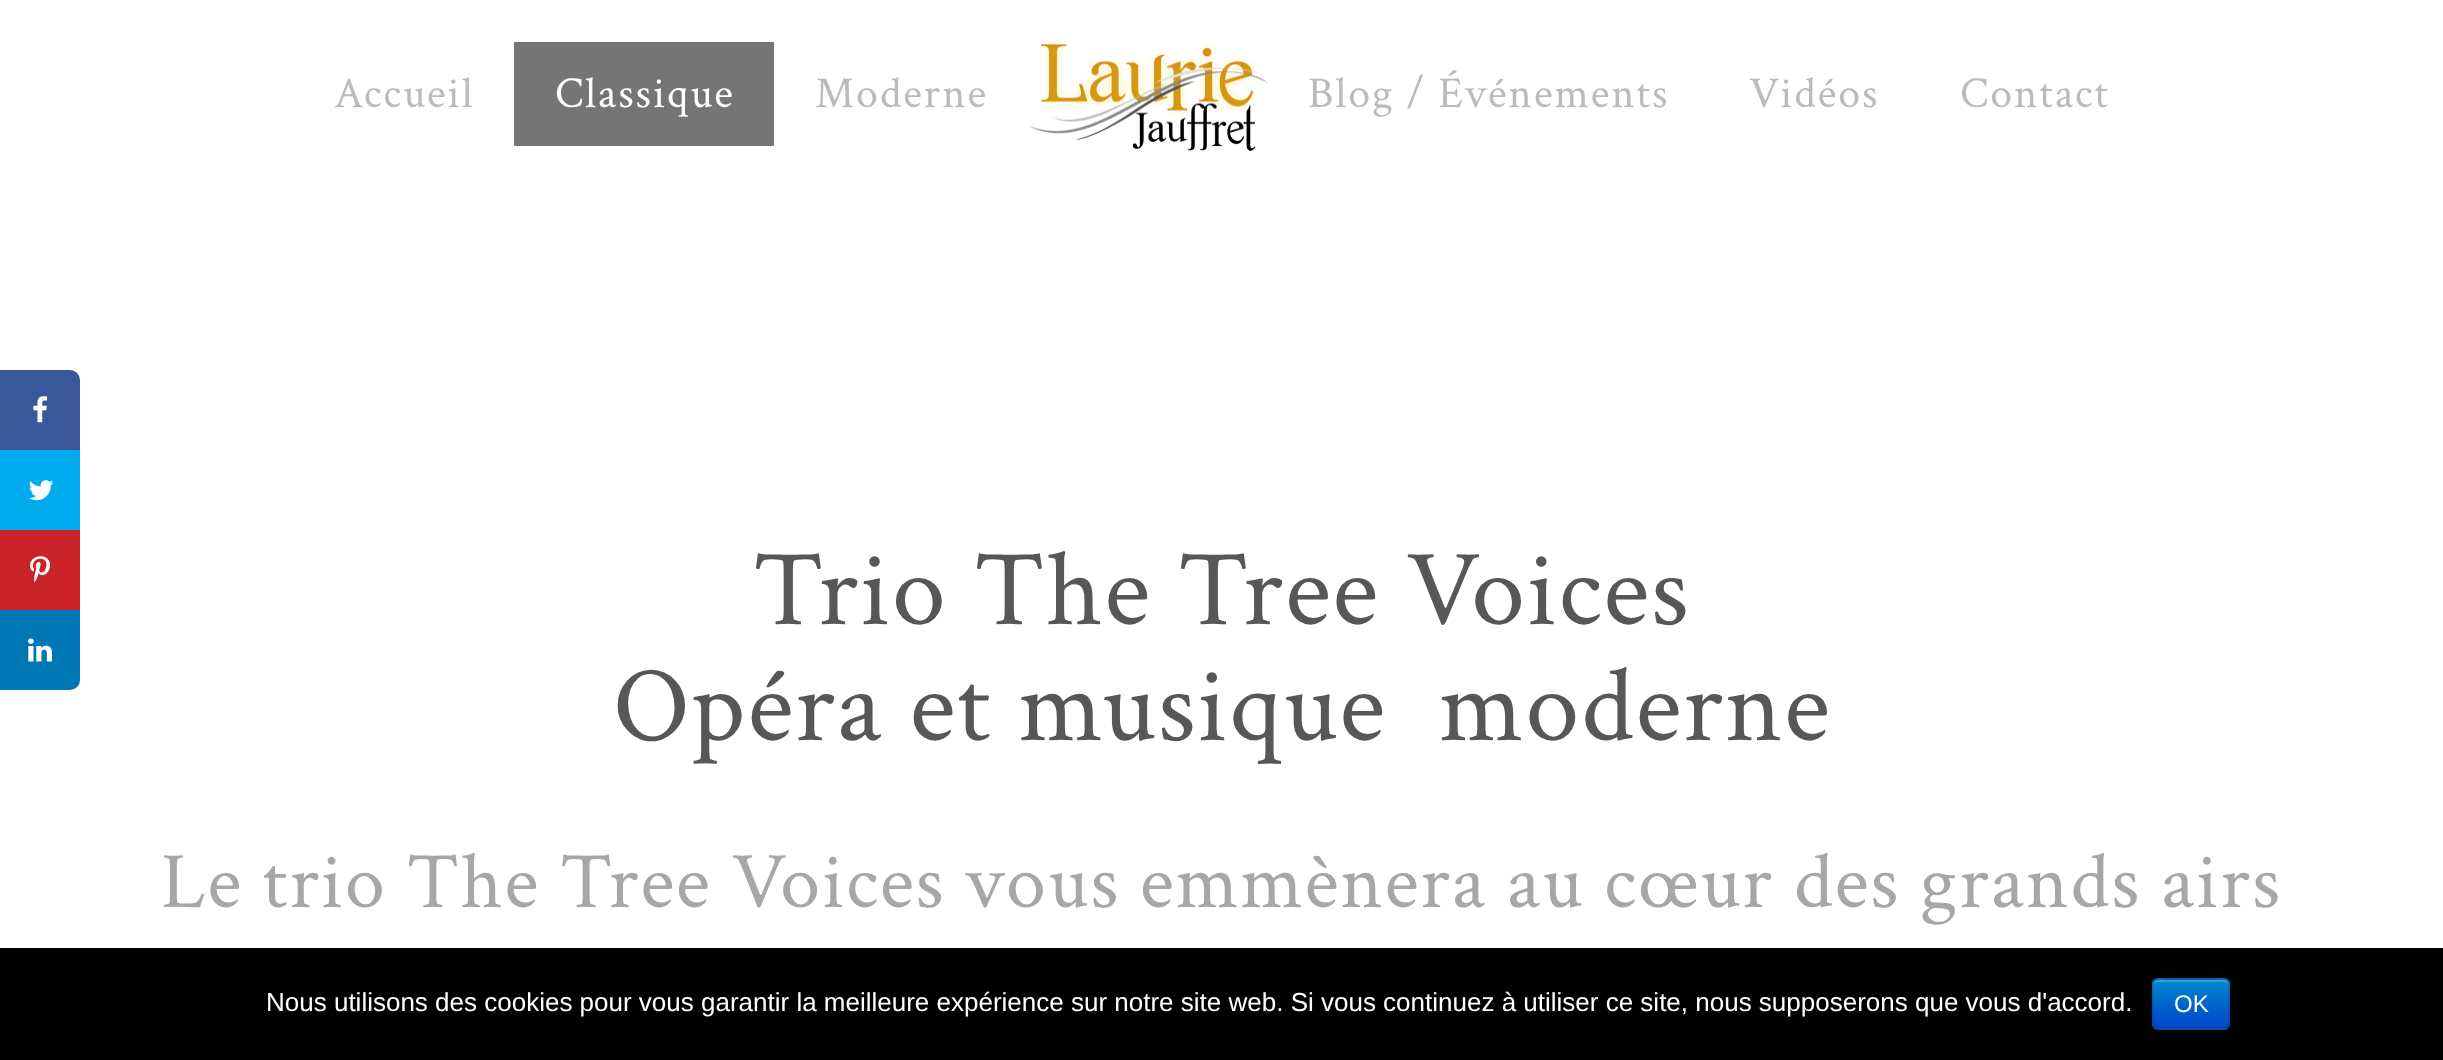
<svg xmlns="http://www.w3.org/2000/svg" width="2443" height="1060">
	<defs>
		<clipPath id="clip1"><rect x="2152" y="978" width="78" height="52" rx="6" /></clipPath>
		<linearGradient id="g1" gradientUnits="userSpaceOnUse" x1="2191" y1="980" x2="2191" y2="1028"><stop offset="0" stop-color="#0088CC" /><stop offset="1" stop-color="#0044CC" /></linearGradient>
	</defs>
	<rect width="100%" height="100%" fill="#FFFFFF" />
	<text x="334" y="107" font-family="Crimson Text" font-size="44" letter-spacing="2" fill="#BBBBBB">Accueil</text>
	<rect x="514" y="42" width="260" height="104" fill="#757575" />
	<text x="555" y="107" font-family="Crimson Text" font-size="44" letter-spacing="2" fill="#FFFFFF">Classique</text>
	<text x="815" y="107" font-family="Crimson Text" font-size="44" letter-spacing="2" fill="#BBBBBB">Moderne</text>
	<image x="1028" y="38" width="240" height="113" href="assets/img1.png" />
	<g font-family="Crimson Text" font-size="44" letter-spacing="2" fill="#BBBBBB">
		<text x="1308" y="107">Blog / Événements</text>
		<text x="1749" y="107">Vidéos</text>
		<text x="1960" y="107">Contact</text>
	</g>
	<path d="M2 372H70C74.5 372 78 375.5 78 380V448H2Z" fill="#3A579A" stroke="#3A579A" stroke-width="4" />
	<image x="33" y="396" width="14" height="27" href="assets/img2.png" />
	<rect x="0" y="450" width="80" height="80" fill="#00ABF0" />
	<image x="29" y="480" width="25" height="21" href="assets/img3.png" />
	<rect x="0" y="530" width="80" height="80" fill="#C92228" />
	<image x="30" y="556" width="20" height="27" href="assets/img4.png" />
	<path d="M2 612H78V680C78 684.5 74.5 688 70 688H2Z" fill="#0077B5" stroke="#0077B5" stroke-width="4" />
	<image x="28" y="638" width="24" height="24" href="assets/img5.png" />
	<g font-family="Crimson Text" font-size="108" letter-spacing="2" fill="#575757">
		<text x="753" y="624">Trio The Tree Voices</text>
		<text x="613" y="740" xml:space="preserve">Opéra et musique  moderne</text>
	</g>
	<text x="161" y="907" font-family="Crimson Text" font-size="80" letter-spacing="2" fill="#A7A7A7">Le trio The Tree Voices vous emmènera au cœur des grands airs</text>
	<rect x="0" y="948" width="2443" height="112" fill="#000000" />
	<text x="266" y="1011" font-family="Liberation Sans" font-size="26" fill="#FFFFFF">Nous utilisons des cookies pour vous garantir la meilleure expérience sur notre site web. Si vous continuez à utiliser ce site, nous supposerons que vous d'accord.</text>
	<rect x="2152" y="978" width="78" height="52" rx="6" fill="#006DCC" />
	<g clip-path="url(#clip1)">
		<rect x="2152" y="980" width="78" height="48" fill="url(#g1)" />
	</g>
	<path d="M2158 982H2224C2226 982 2228 984 2228 986C2228 977 2221 980 2213 980H2169C2161 980 2154 977 2154 986C2154 984 2156 982 2158 982Z" fill="#FFFFFF" fill-opacity="0.2" />
	<path d="M2227.5 1027.5C2226.5 1028.5 2225.5 1029 2224 1029H2158C2156.5 1029 2155.5 1028.5 2154.5 1027.5" fill="none" stroke="#000000" stroke-opacity="0.25" stroke-width="2" />
	<path d="M2154.5 1027.5C2153.5 1026.5 2153 1025.5 2153 1024V984C2153 982.5 2153.5 981.5 2154.5 980.5C2155.5 979.5 2156.5 979 2158 979H2224C2225.5 979 2226.5 979.5 2227.5 980.5C2228.5 981.5 2229 982.5 2229 984V1024C2229 1025.5 2228.5 1026.5 2227.5 1027.5" fill="none" stroke="#000000" stroke-opacity="0.1" stroke-width="2" />
	<text x="2174" y="1012" font-family="Liberation Sans" font-size="24" fill="#FFFFFF">OK</text>
</svg>
